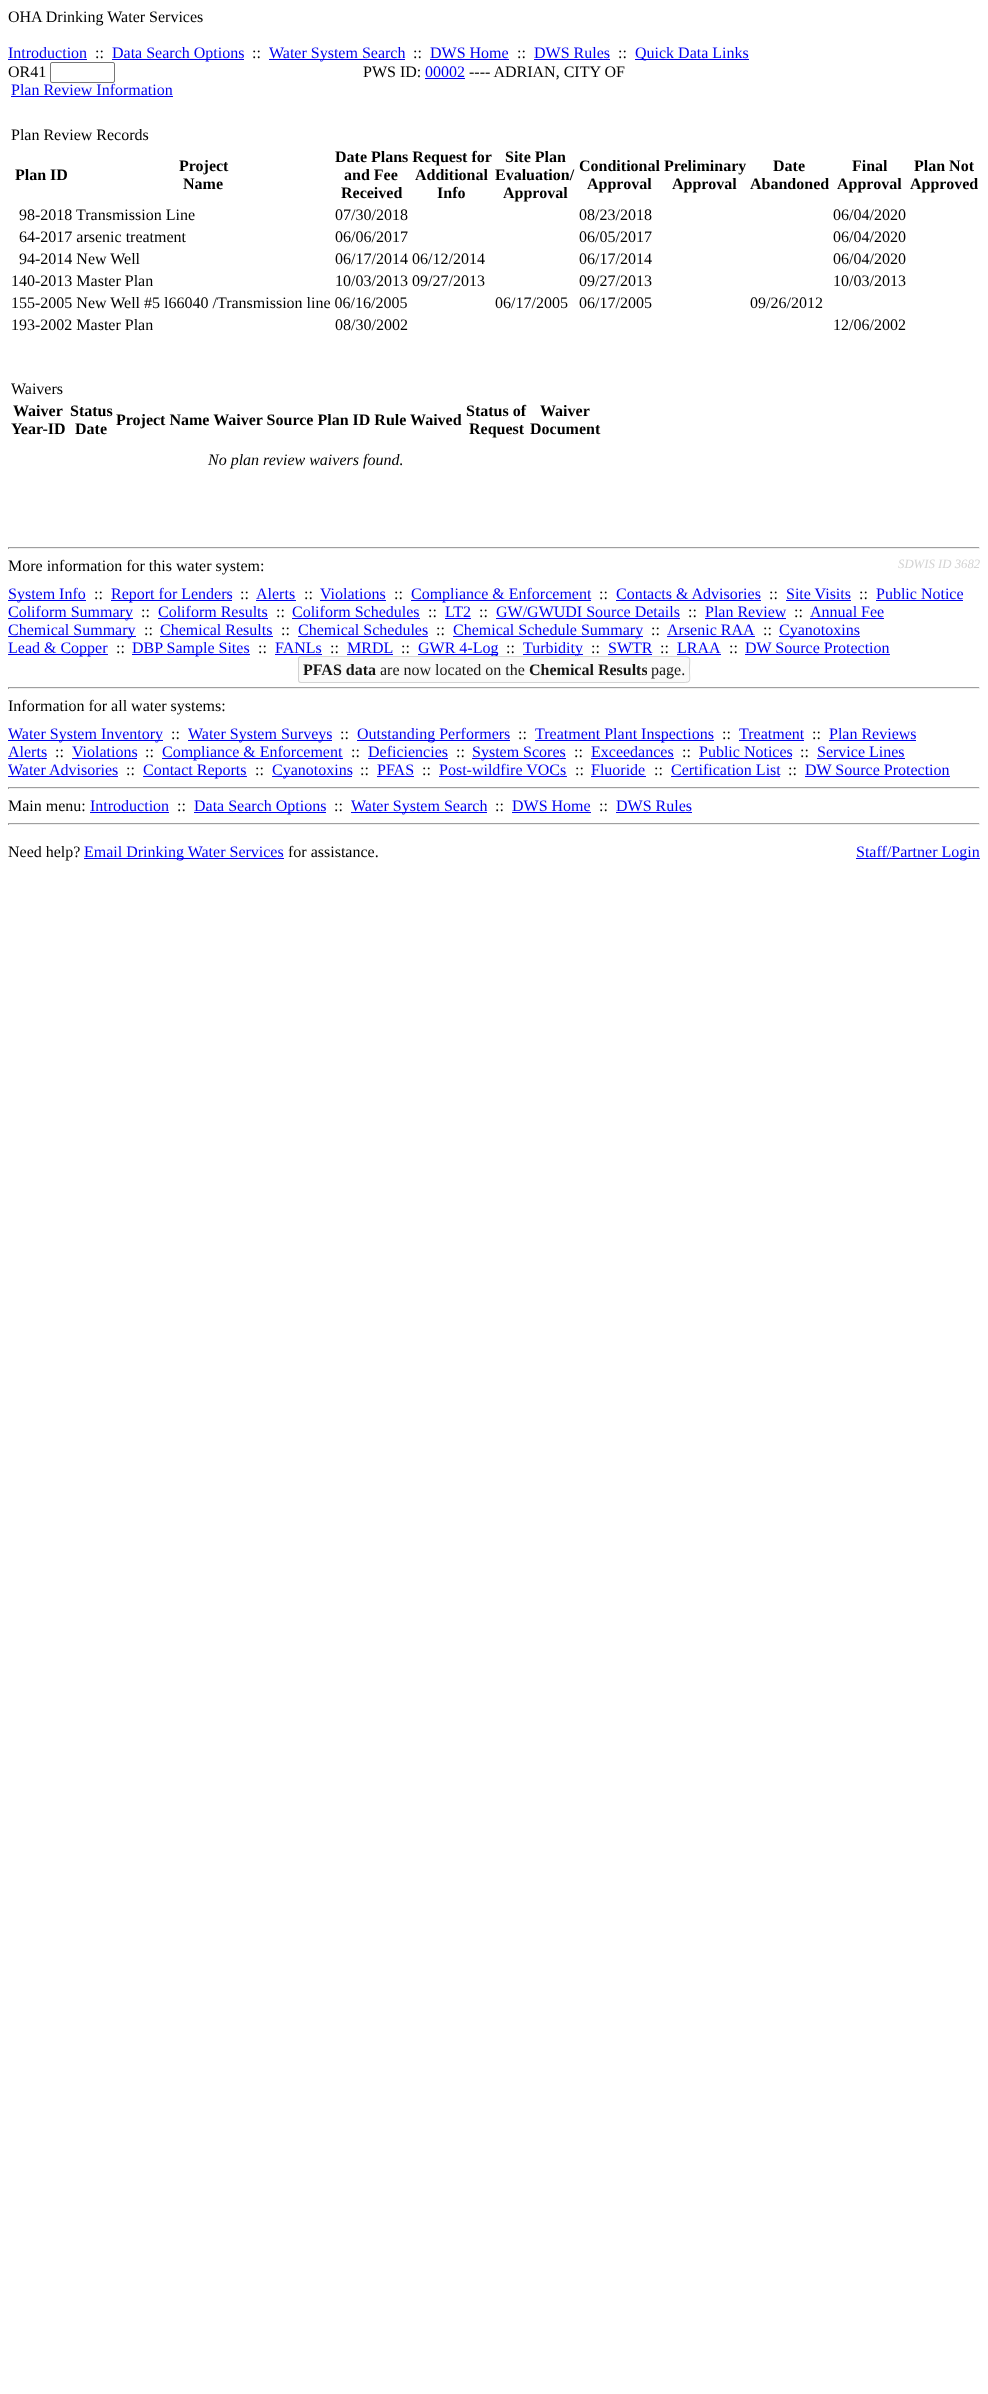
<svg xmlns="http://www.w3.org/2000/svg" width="988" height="2394">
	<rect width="100%" height="100%" fill="#FFFFFF" />
	<text x="8" y="22" font-family="Liberation Serif" font-size="16" fill="#000000">OHA Drinking Water Services</text>
	<text x="8" y="58" font-family="Liberation Serif" font-size="16" fill="#0000EE">Introduction</text>
	<rect x="8" y="59" width="79" height="1" fill="#0000EE" />
	<text x="95" y="58" font-family="Liberation Serif" font-size="16" fill="#000000">::</text>
	<rect x="112" y="59" width="132" height="1" fill="#0000EE" />
	<text x="112" y="58" font-family="Liberation Serif" font-size="16" fill="#0000EE">Data Search Options</text>
	<text x="252" y="58" font-family="Liberation Serif" font-size="16" fill="#000000">::</text>
	<rect x="269" y="59" width="136" height="1" fill="#0000EE" />
	<text x="269" y="58" font-family="Liberation Serif" font-size="16" fill="#0000EE">Water System Search</text>
	<text x="413" y="58" font-family="Liberation Serif" font-size="16" fill="#000000">::</text>
	<text x="430" y="58" font-family="Liberation Serif" font-size="16" fill="#0000EE">DWS Home</text>
	<rect x="430" y="59" width="79" height="1" fill="#0000EE" />
	<text x="517" y="58" font-family="Liberation Serif" font-size="16" fill="#000000">::</text>
	<text x="534" y="58" font-family="Liberation Serif" font-size="16" fill="#0000EE">DWS Rules</text>
	<rect x="534" y="59" width="76" height="1" fill="#0000EE" />
	<text x="618" y="58" font-family="Liberation Serif" font-size="16" fill="#000000">::</text>
	<rect x="635" y="59" width="114" height="1" fill="#0000EE" />
	<text x="635" y="58" font-family="Liberation Serif" font-size="16" fill="#0000EE">Quick Data Links</text>
	<text x="8" y="77" font-family="Liberation Serif" font-size="16" fill="#000000">OR41</text>
	<rect x="50.5" y="62.5" width="64" height="20" rx="1.5" fill="none" stroke="#767676" />
	<text x="363" y="77" font-family="Liberation Serif" font-size="16" fill="#000000">PWS ID:</text>
	<text x="425" y="77" font-family="Liberation Serif" font-size="16" fill="#0000EE">00002</text>
	<rect x="425" y="78" width="40" height="1" fill="#0000EE" />
	<text x="469" y="77" font-family="Liberation Serif" font-size="16" fill="#000000">---- ADRIAN, CITY OF</text>
	<text x="11" y="95" font-family="Liberation Serif" font-size="16" fill="#0000EE">Plan Review Information</text>
	<rect x="11" y="96" width="162" height="1" fill="#0000EE" />
	<text x="11" y="140" font-family="Liberation Serif" font-size="16" fill="#000000">Plan Review Records</text>
	<g font-family="Liberation Serif" font-size="16" font-weight="700" fill="#000000">
		<text x="15" y="180">Plan ID</text>
		<text x="179" y="171">Project</text>
		<text x="183" y="189">Name</text>
		<text x="335" y="162">Date Plans Request for</text>
		<text x="344" y="180">and Fee</text>
		<text x="341" y="198">Received</text>
		<text x="505" y="162">Site Plan</text>
		<text x="495" y="180">Evaluation/</text>
		<text x="503" y="198">Approval</text>
		<text x="579" y="171">Conditional Preliminary</text>
		<text x="587" y="189">Approval</text>
		<text x="773" y="171">Date</text>
		<text x="750" y="189">Abandoned</text>
		<text x="852" y="171">Final</text>
		<text x="837" y="189">Approval</text>
		<text x="914" y="171">Plan Not</text>
		<text x="910" y="189">Approved</text>
		<text x="415" y="180">Additional</text>
		<text x="437" y="198">Info</text>
		<text x="672" y="189">Approval</text>
	</g>
	<g font-family="Liberation Serif" font-size="16" fill="#000000">
		<text x="19" y="220">98-2018 Transmission Line</text>
		<text x="335" y="220">07/30/2018</text>
		<text x="579" y="220">08/23/2018</text>
		<text x="833" y="220">06/04/2020</text>
		<text x="19" y="242">64-2017 arsenic treatment</text>
		<text x="335" y="242">06/06/2017</text>
		<text x="579" y="242">06/05/2017</text>
		<text x="833" y="242">06/04/2020</text>
		<text x="19" y="264">94-2014 New Well</text>
		<text x="335" y="264">06/17/2014</text>
		<text x="412" y="264">06/12/2014</text>
		<text x="579" y="264">06/17/2014</text>
		<text x="833" y="264">06/04/2020</text>
		<text x="11" y="286">140-2013 Master Plan</text>
		<text x="335" y="286">10/03/2013</text>
		<text x="412" y="286">09/27/2013</text>
		<text x="579" y="286">09/27/2013</text>
		<text x="833" y="286">10/03/2013</text>
		<text x="11" y="308">155-2005 New Well #5 l66040 /Transmission line 06/16/2005</text>
		<text x="495" y="308">06/17/2005</text>
		<text x="579" y="308">06/17/2005</text>
		<text x="750" y="308">09/26/2012</text>
		<text x="11" y="330">193-2002 Master Plan</text>
		<text x="335" y="330">08/30/2002</text>
		<text x="833" y="330">12/06/2002</text>
		<text x="11" y="394">Waivers</text>
	</g>
	<g font-family="Liberation Serif" font-size="16" font-weight="700" fill="#000000">
		<text x="13" y="416">Waiver</text>
		<text x="11" y="434">Year-ID</text>
		<text x="70" y="416">Status</text>
		<text x="75" y="434">Date</text>
		<text x="116" y="425">Project Name Waiver Source Plan ID Rule Waived</text>
		<text x="466" y="416">Status of</text>
		<text x="469" y="434">Request</text>
		<text x="540" y="416">Waiver</text>
		<text x="530" y="434">Document</text>
	</g>
	<text x="208" y="465" font-family="Liberation Serif" font-size="16" font-style="italic" fill="#000000">No plan review waivers found.</text>
	<rect x="8" y="547" width="972" height="1" fill="#9F9F9F" />
	<rect x="979" y="547" width="1" height="2" fill="#EEEEEE" />
	<rect x="8" y="548" width="972" height="1" fill="#EEEEEE" />
	<rect x="8" y="547" width="1" height="2" fill="#9F9F9F" />
	<text x="8" y="571" font-family="Liberation Serif" font-size="16" fill="#000000">More information for this water system:</text>
	<text x="898" y="568" font-family="Liberation Serif" font-size="12.75" font-style="italic" fill="#D3D3D3">SDWIS ID 3682</text>
	<rect x="8" y="600" width="78" height="1" fill="#0000EE" />
	<text x="8" y="599" font-family="Liberation Serif" font-size="16" fill="#0000EE">System Info</text>
	<text x="94" y="599" font-family="Liberation Serif" font-size="16" fill="#000000">::</text>
	<rect x="111" y="600" width="121" height="1" fill="#0000EE" />
	<text x="111" y="599" font-family="Liberation Serif" font-size="16" fill="#0000EE">Report for Lenders</text>
	<text x="240" y="599" font-family="Liberation Serif" font-size="16" fill="#000000">::</text>
	<text x="256" y="599" font-family="Liberation Serif" font-size="16" fill="#0000EE">Alerts</text>
	<rect x="256" y="600" width="40" height="1" fill="#0000EE" />
	<text x="304" y="599" font-family="Liberation Serif" font-size="16" fill="#000000">::</text>
	<text x="320" y="599" font-family="Liberation Serif" font-size="16" fill="#0000EE">Violations</text>
	<rect x="320" y="600" width="66" height="1" fill="#0000EE" />
	<text x="394" y="599" font-family="Liberation Serif" font-size="16" fill="#000000">::</text>
	<rect x="411" y="600" width="180" height="1" fill="#0000EE" />
	<text x="411" y="599" font-family="Liberation Serif" font-size="16" fill="#0000EE">Compliance &amp; Enforcement</text>
	<text x="599" y="599" font-family="Liberation Serif" font-size="16" fill="#000000">::</text>
	<text x="616" y="599" font-family="Liberation Serif" font-size="16" fill="#0000EE">Contacts &amp; Advisories</text>
	<rect x="616" y="600" width="145" height="1" fill="#0000EE" />
	<text x="769" y="599" font-family="Liberation Serif" font-size="16" fill="#000000">::</text>
	<text x="786" y="599" font-family="Liberation Serif" font-size="16" fill="#0000EE">Site Visits</text>
	<rect x="786" y="600" width="65" height="1" fill="#0000EE" />
	<text x="859" y="599" font-family="Liberation Serif" font-size="16" fill="#000000">::</text>
	<text x="876" y="599" font-family="Liberation Serif" font-size="16" fill="#0000EE">Public Notice</text>
	<rect x="876" y="600" width="87" height="1" fill="#0000EE" />
	<rect x="8" y="618" width="125" height="1" fill="#0000EE" />
	<text x="8" y="617" font-family="Liberation Serif" font-size="16" fill="#0000EE">Coliform Summary</text>
	<text x="141" y="617" font-family="Liberation Serif" font-size="16" fill="#000000">::</text>
	<text x="158" y="617" font-family="Liberation Serif" font-size="16" fill="#0000EE">Coliform Results</text>
	<rect x="158" y="618" width="110" height="1" fill="#0000EE" />
	<text x="276" y="617" font-family="Liberation Serif" font-size="16" fill="#000000">::</text>
	<text x="292" y="617" font-family="Liberation Serif" font-size="16" fill="#0000EE">Coliform Schedules</text>
	<rect x="292" y="618" width="128" height="1" fill="#0000EE" />
	<text x="428" y="617" font-family="Liberation Serif" font-size="16" fill="#000000">::</text>
	<text x="445" y="617" font-family="Liberation Serif" font-size="16" fill="#0000EE">LT2</text>
	<rect x="445" y="618" width="26" height="1" fill="#0000EE" />
	<text x="479" y="617" font-family="Liberation Serif" font-size="16" fill="#000000">::</text>
	<text x="496" y="617" font-family="Liberation Serif" font-size="16" fill="#0000EE">GW/GWUDI Source Details</text>
	<rect x="496" y="618" width="184" height="1" fill="#0000EE" />
	<text x="688" y="617" font-family="Liberation Serif" font-size="16" fill="#000000">::</text>
	<text x="705" y="617" font-family="Liberation Serif" font-size="16" fill="#0000EE">Plan Review</text>
	<rect x="705" y="618" width="81" height="1" fill="#0000EE" />
	<text x="794" y="617" font-family="Liberation Serif" font-size="16" fill="#000000">::</text>
	<text x="810" y="617" font-family="Liberation Serif" font-size="16" fill="#0000EE">Annual Fee</text>
	<rect x="810" y="618" width="74" height="1" fill="#0000EE" />
	<rect x="8" y="636" width="128" height="1" fill="#0000EE" />
	<text x="8" y="635" font-family="Liberation Serif" font-size="16" fill="#0000EE">Chemical Summary</text>
	<text x="144" y="635" font-family="Liberation Serif" font-size="16" fill="#000000">::</text>
	<text x="160" y="635" font-family="Liberation Serif" font-size="16" fill="#0000EE">Chemical Results</text>
	<rect x="160" y="636" width="113" height="1" fill="#0000EE" />
	<text x="281" y="635" font-family="Liberation Serif" font-size="16" fill="#000000">::</text>
	<text x="298" y="635" font-family="Liberation Serif" font-size="16" fill="#0000EE">Chemical Schedules</text>
	<rect x="298" y="636" width="130" height="1" fill="#0000EE" />
	<text x="436" y="635" font-family="Liberation Serif" font-size="16" fill="#000000">::</text>
	<rect x="453" y="636" width="190" height="1" fill="#0000EE" />
	<text x="453" y="635" font-family="Liberation Serif" font-size="16" fill="#0000EE">Chemical Schedule Summary</text>
	<text x="651" y="635" font-family="Liberation Serif" font-size="16" fill="#000000">::</text>
	<text x="667" y="635" font-family="Liberation Serif" font-size="16" fill="#0000EE">Arsenic RAA</text>
	<rect x="667" y="636" width="88" height="1" fill="#0000EE" />
	<text x="763" y="635" font-family="Liberation Serif" font-size="16" fill="#000000">::</text>
	<rect x="779" y="636" width="81" height="1" fill="#0000EE" />
	<text x="779" y="635" font-family="Liberation Serif" font-size="16" fill="#0000EE">Cyanotoxins</text>
	<rect x="8" y="654" width="100" height="1" fill="#0000EE" />
	<text x="8" y="653" font-family="Liberation Serif" font-size="16" fill="#0000EE">Lead &amp; Copper</text>
	<text x="116" y="653" font-family="Liberation Serif" font-size="16" fill="#000000">::</text>
	<rect x="132" y="654" width="118" height="1" fill="#0000EE" />
	<text x="132" y="653" font-family="Liberation Serif" font-size="16" fill="#0000EE">DBP Sample Sites</text>
	<text x="258" y="653" font-family="Liberation Serif" font-size="16" fill="#000000">::</text>
	<text x="275" y="653" font-family="Liberation Serif" font-size="16" fill="#0000EE">FANLs</text>
	<rect x="275" y="654" width="47" height="1" fill="#0000EE" />
	<text x="330" y="653" font-family="Liberation Serif" font-size="16" fill="#000000">::</text>
	<text x="347" y="653" font-family="Liberation Serif" font-size="16" fill="#0000EE">MRDL</text>
	<rect x="347" y="654" width="46" height="1" fill="#0000EE" />
	<text x="401" y="653" font-family="Liberation Serif" font-size="16" fill="#000000">::</text>
	<rect x="418" y="654" width="80" height="1" fill="#0000EE" />
	<text x="418" y="653" font-family="Liberation Serif" font-size="16" fill="#0000EE">GWR 4-Log</text>
	<text x="506" y="653" font-family="Liberation Serif" font-size="16" fill="#000000">::</text>
	<rect x="523" y="654" width="60" height="1" fill="#0000EE" />
	<text x="523" y="653" font-family="Liberation Serif" font-size="16" fill="#0000EE">Turbidity</text>
	<text x="591" y="653" font-family="Liberation Serif" font-size="16" fill="#000000">::</text>
	<text x="608" y="653" font-family="Liberation Serif" font-size="16" fill="#0000EE">SWTR</text>
	<rect x="608" y="654" width="44" height="1" fill="#0000EE" />
	<text x="660" y="653" font-family="Liberation Serif" font-size="16" fill="#000000">::</text>
	<text x="677" y="653" font-family="Liberation Serif" font-size="16" fill="#0000EE">LRAA</text>
	<rect x="677" y="654" width="44" height="1" fill="#0000EE" />
	<text x="729" y="653" font-family="Liberation Serif" font-size="16" fill="#000000">::</text>
	<text x="745" y="653" font-family="Liberation Serif" font-size="16" fill="#0000EE">DW Source Protection</text>
	<rect x="745" y="654" width="145" height="1" fill="#0000EE" />
	<path d="M301 656H376V683H301C299.5 683 298 681.5 298 680V659C298 657.5 299.5 656 301 656Z" fill="#FAFAFA" />
	<path d="M301 656H376V683H301C299 683 298 682 298 680V659C298 657 299 656 301 656ZM301 657H376V682H301C300 682 299 681 299 680V659C299 658 300 657 301 657Z" fill="#D3D3D3" fill-rule="evenodd" />
	<text x="303" y="675" font-family="Liberation Serif" font-size="16" font-weight="700" fill="#151515">PFAS data</text>
	<rect x="376" y="657" width="271" height="25" fill="#FAFAFA" />
	<rect x="376" y="656" width="271" height="1" fill="#D3D3D3" />
	<text x="380" y="675" font-family="Liberation Serif" font-size="16" fill="#151515">are now located on the</text>
	<text x="529" y="675" font-family="Liberation Serif" font-size="16" font-weight="700" fill="#151515">Chemical Results</text>
	<path d="M647 656H687C688.5 656 690 657.5 690 659V680C690 681.5 688.5 683 687 683H647Z" fill="#FAFAFA" />
	<path d="M647 656H680C693 656 690 657 690 670C690 682 693 683 680 683H647ZM647 657H680C692 657 689 657 689 670C689 682 692 682 680 682H647Z" fill="#D3D3D3" fill-rule="evenodd" />
	<text x="651" y="675" font-family="Liberation Serif" font-size="16" fill="#151515">page.</text>
	<rect x="376" y="682" width="271" height="1" fill="#D3D3D3" />
	<rect x="8" y="687" width="972" height="1" fill="#9F9F9F" />
	<rect x="979" y="687" width="1" height="2" fill="#EEEEEE" />
	<rect x="8" y="688" width="972" height="1" fill="#EEEEEE" />
	<rect x="8" y="687" width="1" height="2" fill="#9F9F9F" />
	<text x="8" y="711" font-family="Liberation Serif" font-size="16" fill="#000000">Information for all water systems:</text>
	<rect x="8" y="740" width="155" height="1" fill="#0000EE" />
	<text x="8" y="739" font-family="Liberation Serif" font-size="16" fill="#0000EE">Water System Inventory</text>
	<text x="171" y="739" font-family="Liberation Serif" font-size="16" fill="#000000">::</text>
	<rect x="188" y="740" width="144" height="1" fill="#0000EE" />
	<text x="188" y="739" font-family="Liberation Serif" font-size="16" fill="#0000EE">Water System Surveys</text>
	<text x="340" y="739" font-family="Liberation Serif" font-size="16" fill="#000000">::</text>
	<rect x="357" y="740" width="153" height="1" fill="#0000EE" />
	<text x="357" y="739" font-family="Liberation Serif" font-size="16" fill="#0000EE">Outstanding Performers</text>
	<text x="518" y="739" font-family="Liberation Serif" font-size="16" fill="#000000">::</text>
	<rect x="535" y="740" width="179" height="1" fill="#0000EE" />
	<text x="535" y="739" font-family="Liberation Serif" font-size="16" fill="#0000EE">Treatment Plant Inspections</text>
	<text x="722" y="739" font-family="Liberation Serif" font-size="16" fill="#000000">::</text>
	<text x="739" y="739" font-family="Liberation Serif" font-size="16" fill="#0000EE">Treatment</text>
	<rect x="739" y="740" width="65" height="1" fill="#0000EE" />
	<text x="812" y="739" font-family="Liberation Serif" font-size="16" fill="#000000">::</text>
	<text x="829" y="739" font-family="Liberation Serif" font-size="16" fill="#0000EE">Plan Reviews</text>
	<rect x="829" y="740" width="87" height="1" fill="#0000EE" />
	<text x="8" y="757" font-family="Liberation Serif" font-size="16" fill="#0000EE">Alerts</text>
	<rect x="8" y="758" width="39" height="1" fill="#0000EE" />
	<text x="55" y="757" font-family="Liberation Serif" font-size="16" fill="#000000">::</text>
	<text x="72" y="757" font-family="Liberation Serif" font-size="16" fill="#0000EE">Violations</text>
	<rect x="72" y="758" width="65" height="1" fill="#0000EE" />
	<text x="145" y="757" font-family="Liberation Serif" font-size="16" fill="#000000">::</text>
	<rect x="162" y="758" width="181" height="1" fill="#0000EE" />
	<text x="162" y="757" font-family="Liberation Serif" font-size="16" fill="#0000EE">Compliance &amp; Enforcement</text>
	<text x="351" y="757" font-family="Liberation Serif" font-size="16" fill="#000000">::</text>
	<text x="368" y="757" font-family="Liberation Serif" font-size="16" fill="#0000EE">Deficiencies</text>
	<rect x="368" y="758" width="80" height="1" fill="#0000EE" />
	<text x="456" y="757" font-family="Liberation Serif" font-size="16" fill="#000000">::</text>
	<rect x="472" y="758" width="94" height="1" fill="#0000EE" />
	<text x="472" y="757" font-family="Liberation Serif" font-size="16" fill="#0000EE">System Scores</text>
	<text x="574" y="757" font-family="Liberation Serif" font-size="16" fill="#000000">::</text>
	<text x="591" y="757" font-family="Liberation Serif" font-size="16" fill="#0000EE">Exceedances</text>
	<rect x="591" y="758" width="83" height="1" fill="#0000EE" />
	<text x="682" y="757" font-family="Liberation Serif" font-size="16" fill="#000000">::</text>
	<text x="699" y="757" font-family="Liberation Serif" font-size="16" fill="#0000EE">Public Notices</text>
	<rect x="699" y="758" width="93" height="1" fill="#0000EE" />
	<text x="800" y="757" font-family="Liberation Serif" font-size="16" fill="#000000">::</text>
	<text x="817" y="757" font-family="Liberation Serif" font-size="16" fill="#0000EE">Service Lines</text>
	<rect x="817" y="758" width="88" height="1" fill="#0000EE" />
	<text x="8" y="775" font-family="Liberation Serif" font-size="16" fill="#0000EE">Water Advisories</text>
	<rect x="8" y="776" width="110" height="1" fill="#0000EE" />
	<text x="126" y="775" font-family="Liberation Serif" font-size="16" fill="#000000">::</text>
	<rect x="143" y="776" width="104" height="1" fill="#0000EE" />
	<text x="143" y="775" font-family="Liberation Serif" font-size="16" fill="#0000EE">Contact Reports</text>
	<text x="255" y="775" font-family="Liberation Serif" font-size="16" fill="#000000">::</text>
	<rect x="272" y="776" width="80" height="1" fill="#0000EE" />
	<text x="272" y="775" font-family="Liberation Serif" font-size="16" fill="#0000EE">Cyanotoxins</text>
	<text x="360" y="775" font-family="Liberation Serif" font-size="16" fill="#000000">::</text>
	<text x="377" y="775" font-family="Liberation Serif" font-size="16" fill="#0000EE">PFAS</text>
	<rect x="377" y="776" width="37" height="1" fill="#0000EE" />
	<text x="422" y="775" font-family="Liberation Serif" font-size="16" fill="#000000">::</text>
	<text x="439" y="775" font-family="Liberation Serif" font-size="16" fill="#0000EE">Post-wildfire VOCs</text>
	<rect x="439" y="776" width="128" height="1" fill="#0000EE" />
	<text x="575" y="775" font-family="Liberation Serif" font-size="16" fill="#000000">::</text>
	<text x="591" y="775" font-family="Liberation Serif" font-size="16" fill="#0000EE">Fluoride</text>
	<rect x="591" y="776" width="55" height="1" fill="#0000EE" />
	<text x="654" y="775" font-family="Liberation Serif" font-size="16" fill="#000000">::</text>
	<text x="671" y="775" font-family="Liberation Serif" font-size="16" fill="#0000EE">Certification List</text>
	<rect x="671" y="776" width="109" height="1" fill="#0000EE" />
	<text x="788" y="775" font-family="Liberation Serif" font-size="16" fill="#000000">::</text>
	<text x="805" y="775" font-family="Liberation Serif" font-size="16" fill="#0000EE">DW Source Protection</text>
	<rect x="805" y="776" width="145" height="1" fill="#0000EE" />
	<rect x="8" y="787" width="972" height="1" fill="#9F9F9F" />
	<rect x="979" y="787" width="1" height="2" fill="#EEEEEE" />
	<rect x="8" y="788" width="972" height="1" fill="#EEEEEE" />
	<rect x="8" y="787" width="1" height="2" fill="#9F9F9F" />
	<text x="8" y="811" font-family="Liberation Serif" font-size="16" fill="#000000">Main menu:</text>
	<text x="90" y="811" font-family="Liberation Serif" font-size="16" fill="#0000EE">Introduction</text>
	<rect x="90" y="812" width="79" height="1" fill="#0000EE" />
	<text x="177" y="811" font-family="Liberation Serif" font-size="16" fill="#000000">::</text>
	<rect x="194" y="812" width="132" height="1" fill="#0000EE" />
	<text x="194" y="811" font-family="Liberation Serif" font-size="16" fill="#0000EE">Data Search Options</text>
	<text x="334" y="811" font-family="Liberation Serif" font-size="16" fill="#000000">::</text>
	<rect x="351" y="812" width="136" height="1" fill="#0000EE" />
	<text x="351" y="811" font-family="Liberation Serif" font-size="16" fill="#0000EE">Water System Search</text>
	<text x="495" y="811" font-family="Liberation Serif" font-size="16" fill="#000000">::</text>
	<text x="512" y="811" font-family="Liberation Serif" font-size="16" fill="#0000EE">DWS Home</text>
	<rect x="512" y="812" width="79" height="1" fill="#0000EE" />
	<text x="599" y="811" font-family="Liberation Serif" font-size="16" fill="#000000">::</text>
	<text x="616" y="811" font-family="Liberation Serif" font-size="16" fill="#0000EE">DWS Rules</text>
	<rect x="616" y="812" width="76" height="1" fill="#0000EE" />
	<rect x="8" y="823" width="972" height="1" fill="#9F9F9F" />
	<rect x="979" y="823" width="1" height="2" fill="#EEEEEE" />
	<rect x="8" y="824" width="972" height="1" fill="#EEEEEE" />
	<rect x="8" y="823" width="1" height="2" fill="#9F9F9F" />
	<text x="8" y="857" font-family="Liberation Serif" font-size="16" fill="#000000">Need help?</text>
	<rect x="84" y="858" width="200" height="1" fill="#0000EE" />
	<text x="84" y="857" font-family="Liberation Serif" font-size="16" fill="#0000EE">Email Drinking Water Services</text>
	<text x="288" y="857" font-family="Liberation Serif" font-size="16" fill="#000000">for assistance.</text>
	<rect x="856" y="858" width="124" height="1" fill="#0000EE" />
	<text x="856" y="857" font-family="Liberation Serif" font-size="16" fill="#0000EE">Staff/Partner Login</text>
</svg>
